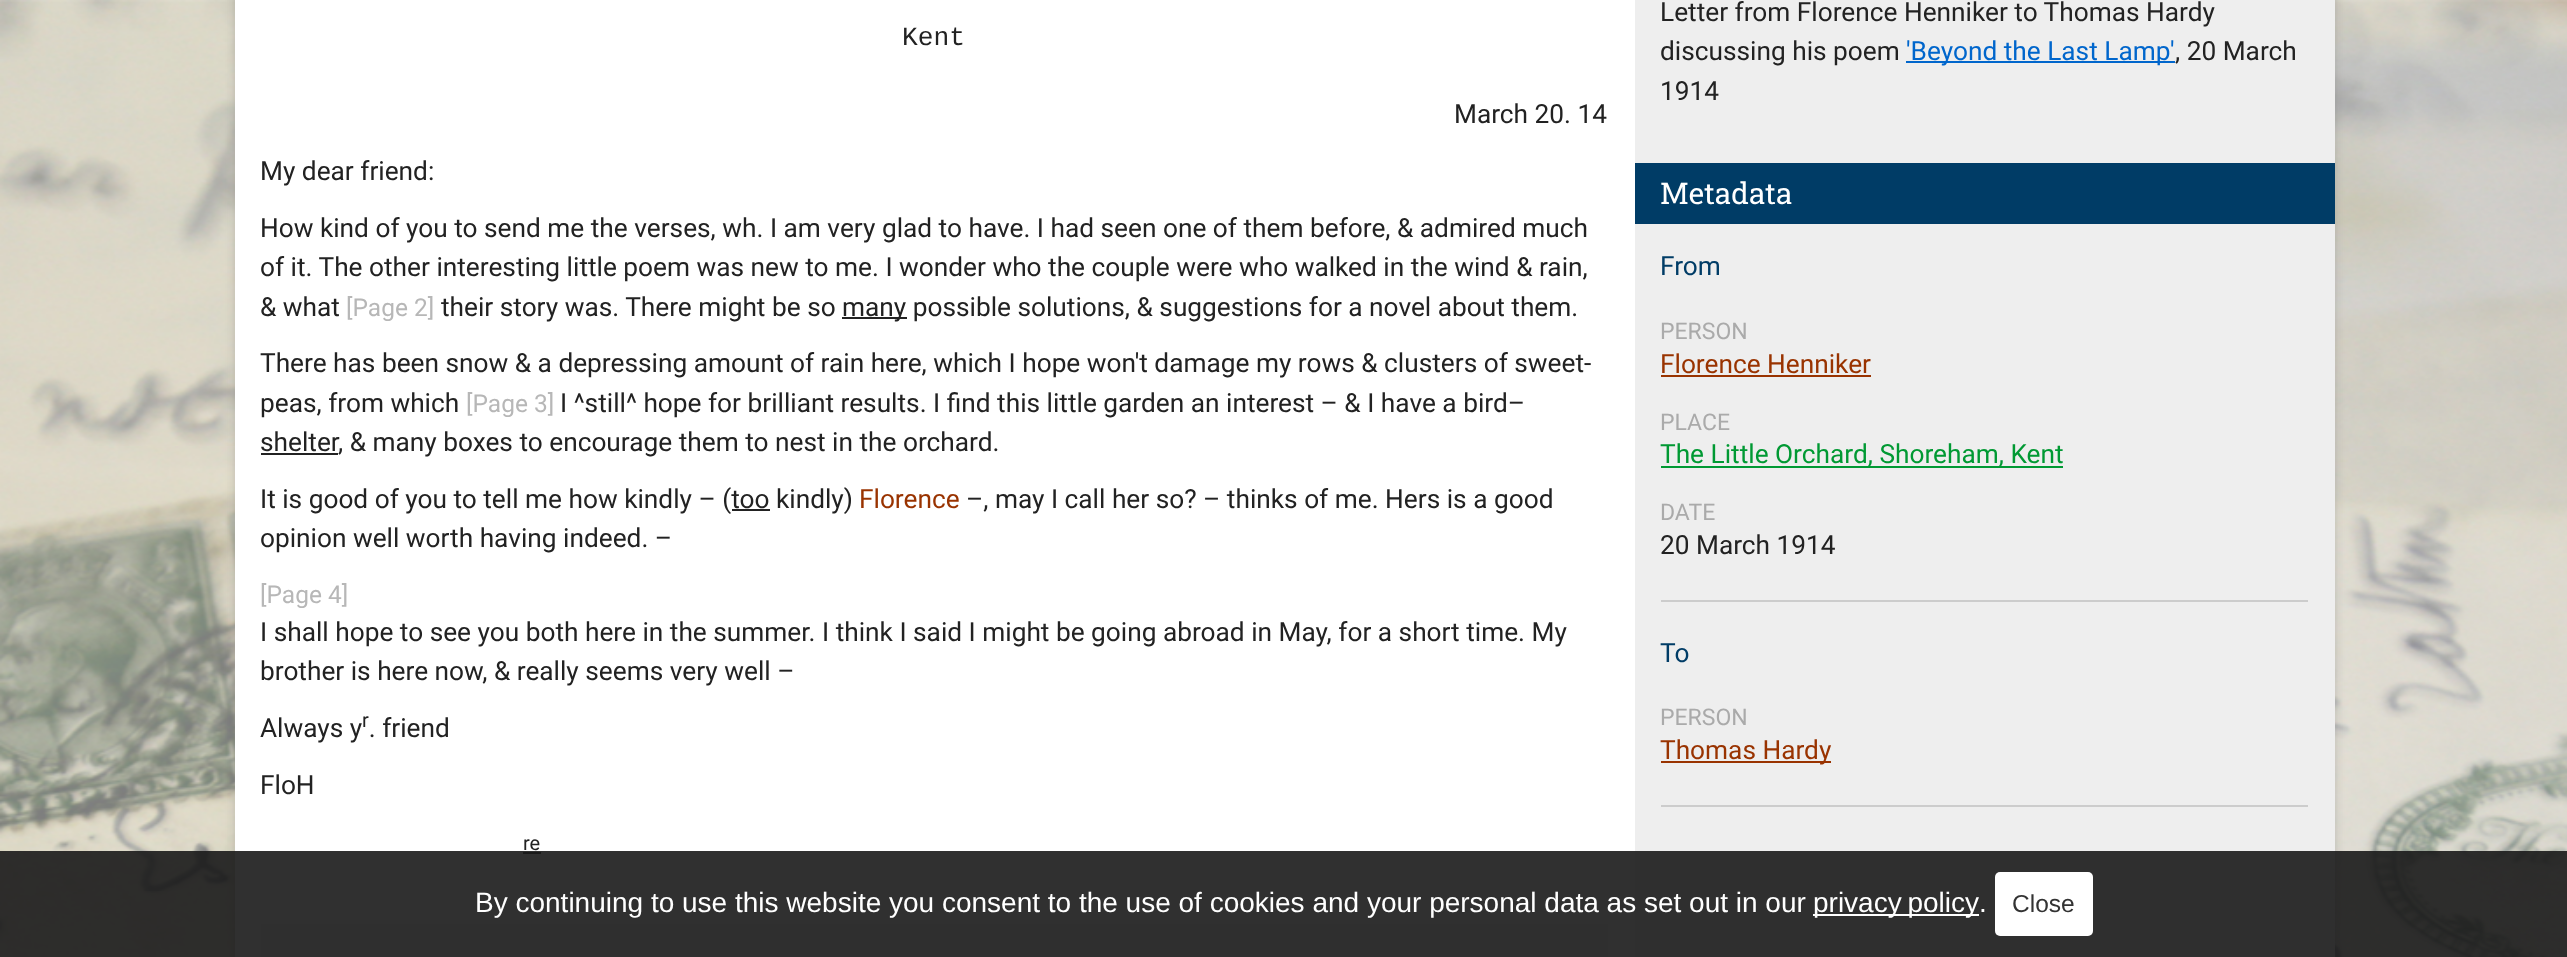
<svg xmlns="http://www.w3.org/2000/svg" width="2567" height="957">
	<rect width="100%" height="100%" fill="#FFFFFF" />
	<image x="0" y="0" width="2567" height="957" href="assets/img1.png" />
	<rect x="235" y="-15" width="2100" height="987" fill="#646464" fill-opacity="0.3" filter="blur(5px)" />
	<rect x="235" y="0" width="1400" height="957" fill="#FFFFFF" />
	<text x="902" y="45" font-family="Liberation Mono" font-size="26.25" fill="#222222">Kent</text>
	<g font-family="Roboto" font-size="26.25" fill="#222222">
		<text x="1454" y="123">March 20. 14</text>
		<text x="260" y="180">My dear friend:</text>
		<text x="260" y="237">How kind of you to send me the verses, wh. I am very glad to have. I had seen one of them before, &amp; admired much</text>
		<text x="260" y="276">of it. The other interesting little poem was new to me. I wonder who the couple were who walked in the wind &amp; rain,</text>
		<text x="260" y="316">&amp; what</text>
	</g>
	<text x="346" y="316" font-family="Roboto" font-size="24.5" fill="#B7B7B7">[Page 2]</text>
	<text x="441" y="316" font-family="Roboto" font-size="26.25" fill="#222222">their story was. There might be so</text>
	<rect x="842" y="317" width="65" height="2" fill="#222222" />
	<g font-family="Roboto" font-size="26.25" fill="#222222">
		<text x="842" y="316">many possible solutions, &amp; suggestions for a novel about them.</text>
		<text x="260" y="372">There has been snow &amp; a depressing amount of rain here, which I hope won't damage my rows &amp; clusters of sweet-</text>
		<text x="260" y="412">peas, from which</text>
	</g>
	<text x="466" y="412" font-family="Roboto" font-size="24.5" fill="#B7B7B7">[Page 3]</text>
	<g font-family="Roboto" font-size="26.25" fill="#222222">
		<text x="560" y="412">I ^still^ hope for brilliant results. I find this little garden an interest – &amp; I have a bird–</text>
		<text x="260" y="451">shelter</text>
	</g>
	<rect x="261" y="453" width="77" height="2" fill="#222222" />
	<g font-family="Roboto" font-size="26.25" fill="#222222">
		<text x="338" y="451">, &amp; many boxes to encourage them to nest in the orchard.</text>
		<text x="260" y="508">It is good of you to tell me how kindly – (too kindly)</text>
	</g>
	<text x="859" y="508" font-family="Roboto" font-size="26.25" fill="#993300">Florence</text>
	<text x="966" y="508" font-family="Roboto" font-size="26.25" fill="#222222">–, may I call her so? – thinks of me. Hers is a good</text>
	<rect x="732" y="509" width="38" height="2" fill="#222222" />
	<text x="260" y="547" font-family="Roboto" font-size="26.25" fill="#222222">opinion well worth having indeed. –</text>
	<text x="260" y="603" font-family="Roboto" font-size="24.5" fill="#B7B7B7">[Page 4]</text>
	<g font-family="Roboto" font-size="26.25" fill="#222222">
		<text x="260" y="641">I shall hope to see you both here in the summer. I think I said I might be going abroad in May, for a short time. My</text>
		<text x="260" y="680">brother is here now, &amp; really seems very well –</text>
		<text x="260" y="737">Always y . friend</text>
	</g>
	<text x="362" y="727" font-family="Roboto" font-size="20" fill="#222222">r</text>
	<text x="260" y="794" font-family="Roboto" font-size="26.25" fill="#222222">FloH</text>
	<text x="523" y="850" font-family="Roboto" font-size="20" fill="#222222">re</text>
	<rect x="523" y="852" width="18" height="2" fill="#222222" />
	<rect x="261" y="924" width="1347" height="33" fill="#EEEEEE" />
	<rect x="1635" y="0" width="700" height="957" fill="#EEEEEE" />
	<g font-family="Roboto" font-size="26.25" fill="#222222">
		<text x="1660" y="21">Letter from Florence Henniker to Thomas Hardy</text>
		<text x="1660" y="60">discussing his poem</text>
	</g>
	<rect x="1906" y="61" width="269" height="2" fill="#0066CC" />
	<text x="1906" y="60" font-family="Roboto" font-size="26.25" fill="#0066CC">'Beyond the Last Lamp'</text>
	<g font-family="Roboto" font-size="26.25" fill="#222222">
		<text x="2175" y="60">, 20 March</text>
		<text x="1660" y="100">1914</text>
	</g>
	<rect x="1635" y="163" width="700" height="61" fill="#003C66" />
	<text x="1660" y="204" font-family="Roboto Slab" font-size="29.75" fill="#FFFFFF">Metadata</text>
	<text x="1660" y="275" font-family="Roboto" font-size="26.25" fill="#003C66">From</text>
	<text x="1660" y="339" font-family="Roboto" font-size="23" fill="#AAAAAA">PERSON</text>
	<text x="1660" y="373" font-family="Roboto" font-size="26.25" fill="#993300">Florence Henniker</text>
	<rect x="1661" y="375" width="210" height="2" fill="#993300" />
	<text x="1660" y="430" font-family="Roboto" font-size="23" fill="#AAAAAA">PLACE</text>
	<rect x="1661" y="466" width="402" height="2" fill="#009933" />
	<text x="1660" y="463" font-family="Roboto" font-size="26.25" fill="#009933">The Little Orchard, Shoreham, Kent</text>
	<text x="1660" y="520" font-family="Roboto" font-size="23" fill="#AAAAAA">DATE</text>
	<text x="1660" y="554" font-family="Roboto" font-size="26.25" fill="#222222">20 March 1914</text>
	<rect x="1661" y="600" width="647" height="2" fill="#CCCCCC" />
	<text x="1660" y="662" font-family="Roboto" font-size="26.25" fill="#003C66">To</text>
	<text x="1660" y="725" font-family="Roboto" font-size="23" fill="#AAAAAA">PERSON</text>
	<rect x="1661" y="761" width="170" height="2" fill="#993300" />
	<text x="1660" y="759" font-family="Roboto" font-size="26.25" fill="#993300">Thomas Hardy</text>
	<rect x="1661" y="805" width="647" height="2" fill="#CCCCCC" />
	<rect x="0" y="851" width="2567" height="106" fill="#191919" fill-opacity="0.9" />
	<text x="475" y="912" font-family="Liberation Sans" font-size="28" fill="#FFFFFF">By continuing to use this website you consent to the use of cookies and your personal data as set out in our</text>
	<rect x="1813" y="914" width="166" height="2" fill="#FFFFFF" />
	<g font-family="Liberation Sans" font-size="28" fill="#FFFFFF">
		<text x="1813" y="912" word-spacing="-2">privacy policy</text>
		<text x="1979" y="912">.</text>
	</g>
	<rect x="1995" y="872" width="98" height="64" rx="5" fill="#FFFFFF" />
	<text x="2012" y="912" font-family="Liberation Sans" font-size="24.5" fill="#333333">Close</text>
</svg>
